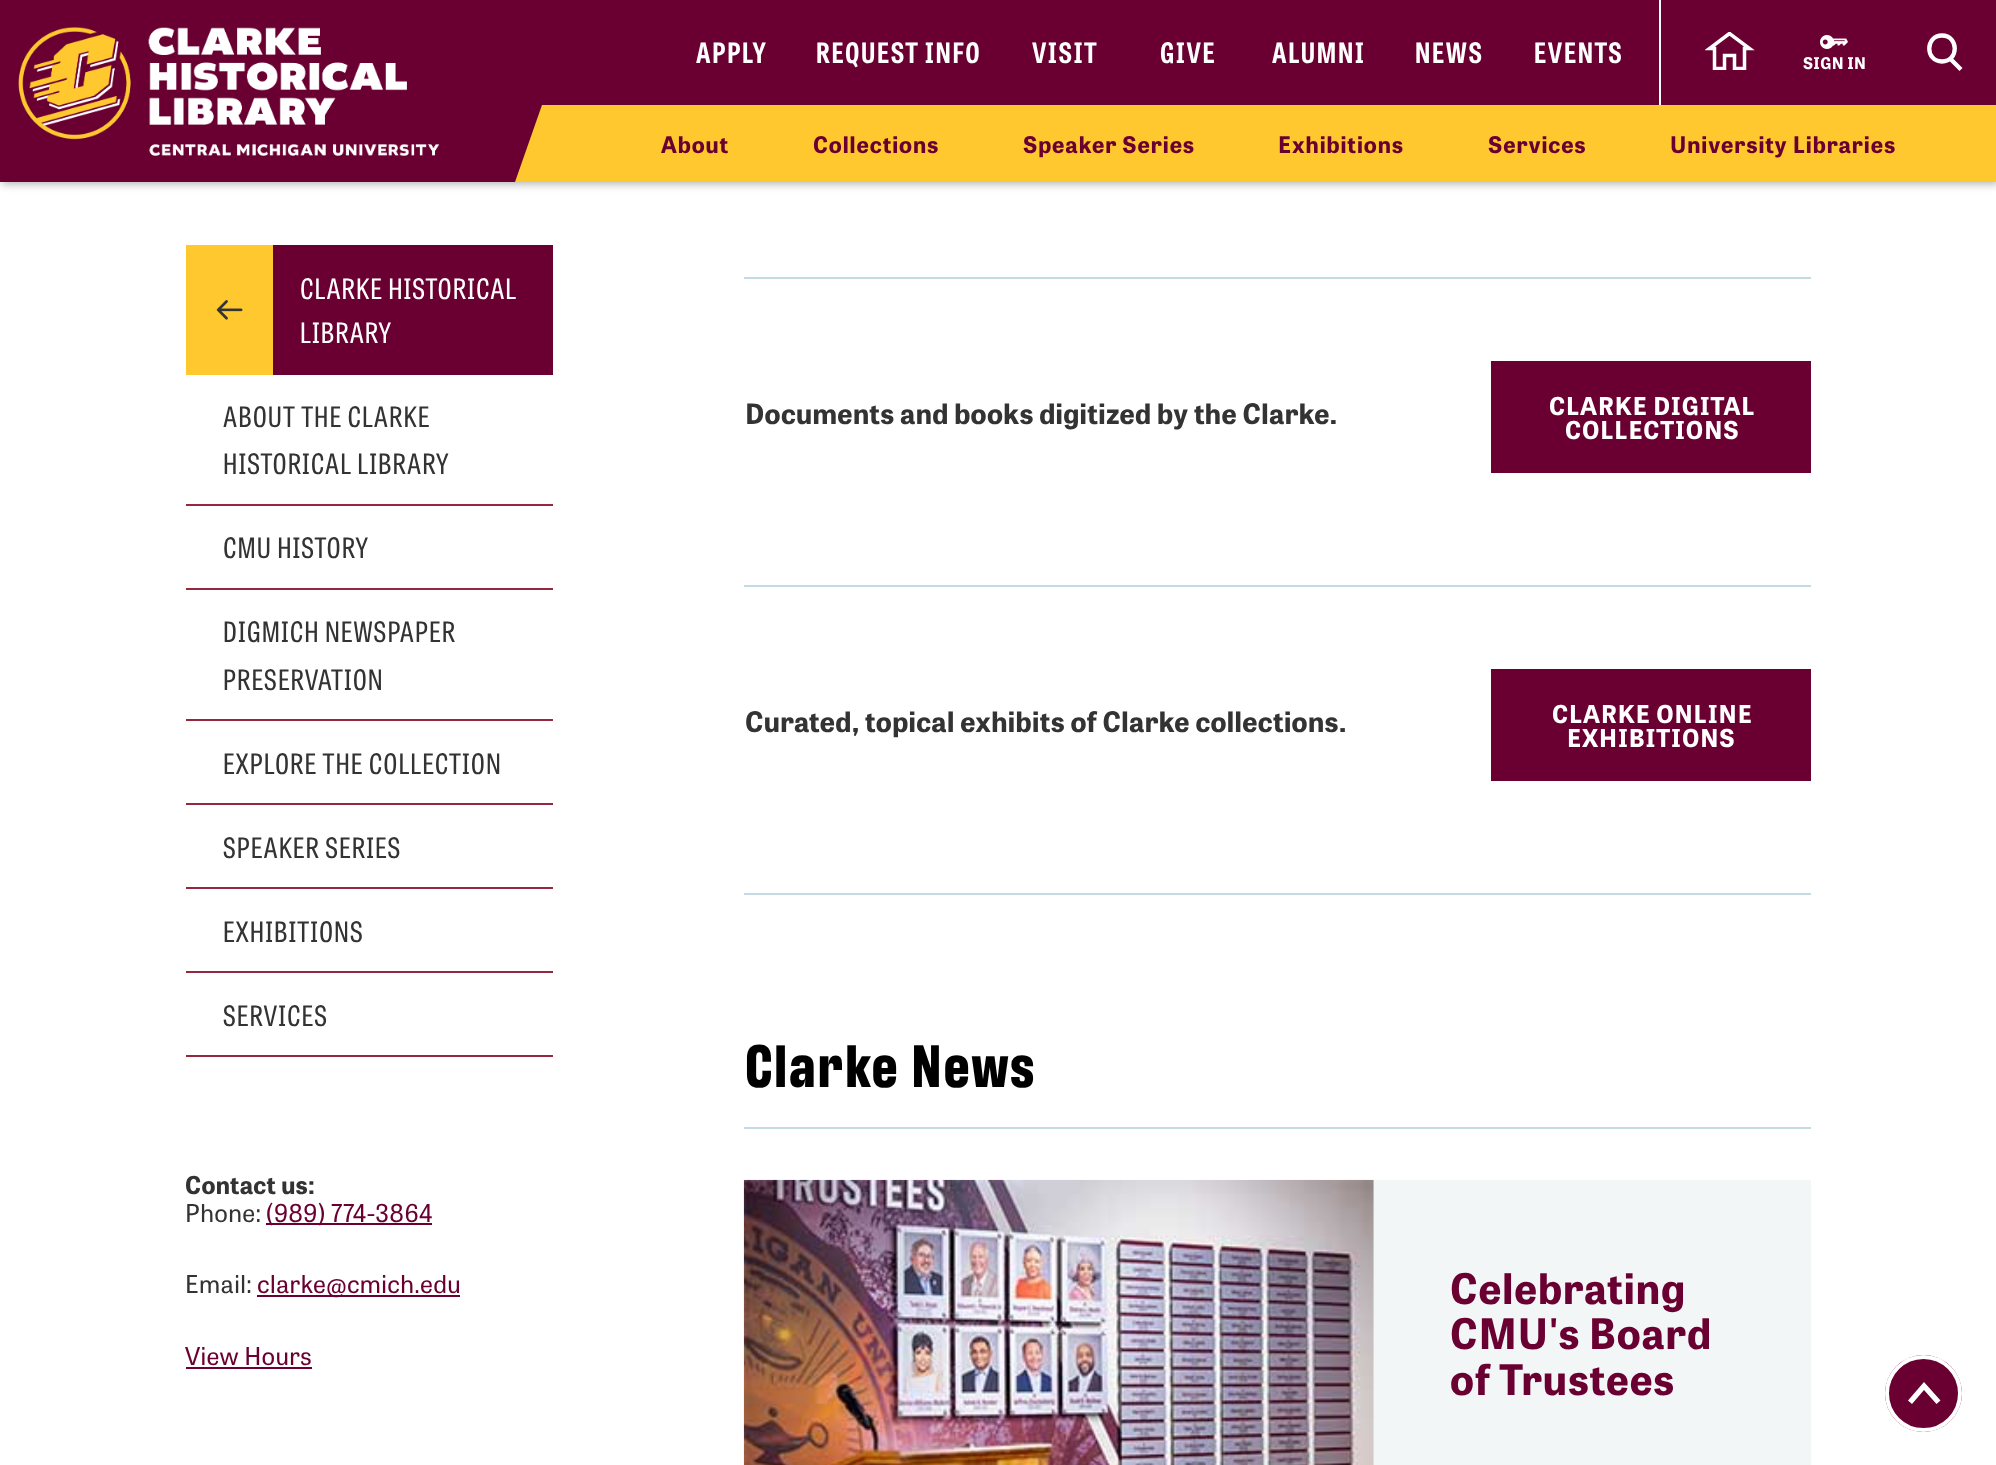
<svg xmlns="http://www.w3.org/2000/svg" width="1996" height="1465">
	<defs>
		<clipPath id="clip1"><rect x="1705" y="32" width="50" height="38" /></clipPath>
	</defs>
	<rect width="100%" height="100%" fill="#FFFFFF" />
	<rect x="2" y="2" width="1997" height="182" fill="#000000" fill-opacity="0.3" filter="blur(4.5px)" />
	<rect x="542" y="0" width="1454" height="105" fill="#6A0032" />
	<rect x="515" y="105" width="1481" height="77" fill="#FFC82E" />
	<path d="M0 0V182H515L542 105V0Z" fill="#6A0032" />
	<image x="18" y="27" width="422" height="129" href="assets/img1.png" />
	<g font-family="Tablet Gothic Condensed" font-size="28" font-weight="700" letter-spacing="1.75" fill="#FFFFFF">
		<text x="696" y="63">APPLY</text>
		<text x="816" y="63">REQUEST INFO</text>
		<text x="1032" y="63">VISIT</text>
		<text x="1160" y="63">GIVE</text>
		<text x="1272" y="63">ALUMNI</text>
		<text x="1415" y="63">NEWS</text>
		<text x="1534" y="63">EVENTS</text>
	</g>
	<rect x="1659" y="0" width="2" height="105" fill="#FFFFFF" />
	<g clip-path="url(#clip1)">
		<path d="M1729.5 33.5L1709.5 48.5H1714.5V68.5H1724.5V55.5H1734.5V68.5H1744.5V48.5H1749.5Z" fill="none" stroke="#FFFFFF" stroke-width="3.5" />
	</g>
	<image x="1820" y="35" width="28" height="14" href="assets/img2.png" />
	<text x="1803" y="69" font-family="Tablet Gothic" font-size="16" font-weight="700" letter-spacing="0.35" fill="#FFFFFF">SIGN IN</text>
	<path d="M1942 61.5C1959 61.5 1959 35.5 1942 35.5C1925 35.5 1925 61.5 1942 61.5ZM1951 59.5L1961 69.5" fill="none" stroke="#FFFFFF" stroke-width="4.3" />
	<g font-family="Tablet Gothic" font-size="22.75" font-weight="700" letter-spacing="0.9" fill="#6A0032">
		<text x="661" y="153">About</text>
		<text x="813" y="153">Collections</text>
		<text x="1023" y="153">Speaker Series</text>
		<text x="1278" y="153">Exhibitions</text>
		<text x="1488" y="153">Services</text>
		<text x="1670" y="153">University Libraries</text>
	</g>
	<rect x="273" y="245" width="280" height="130" fill="#6A0032" />
	<rect x="186" y="245" width="87" height="130" fill="#FFC82E" />
	<image x="216" y="300" width="27" height="20" href="assets/img3.png" />
	<g font-family="Tablet Gothic Condensed" font-size="28" letter-spacing="1.05" fill="#FFFFFF">
		<text x="300" y="299">CLARKE HISTORICAL</text>
		<text x="300" y="343">LIBRARY</text>
	</g>
	<rect x="186" y="504" width="367" height="2" fill="#93283E" />
	<g font-family="Tablet Gothic Condensed" font-size="28" letter-spacing="1.05" fill="#333333">
		<text x="223" y="427">ABOUT THE CLARKE</text>
		<text x="223" y="474">HISTORICAL LIBRARY</text>
	</g>
	<rect x="186" y="588" width="367" height="2" fill="#93283E" />
	<text x="223" y="558" font-family="Tablet Gothic Condensed" font-size="28" letter-spacing="1.05" fill="#333333">CMU HISTORY</text>
	<rect x="186" y="719" width="367" height="2" fill="#93283E" />
	<g font-family="Tablet Gothic Condensed" font-size="28" letter-spacing="1.05" fill="#333333">
		<text x="223" y="642">DIGMICH NEWSPAPER</text>
		<text x="223" y="690">PRESERVATION</text>
	</g>
	<rect x="186" y="803" width="367" height="2" fill="#93283E" />
	<text x="223" y="774" font-family="Tablet Gothic Condensed" font-size="28" letter-spacing="1.05" fill="#333333">EXPLORE THE COLLECTION</text>
	<rect x="186" y="887" width="367" height="2" fill="#93283E" />
	<text x="223" y="858" font-family="Tablet Gothic Condensed" font-size="28" letter-spacing="1.05" fill="#333333">SPEAKER SERIES</text>
	<rect x="186" y="971" width="367" height="2" fill="#93283E" />
	<text x="223" y="942" font-family="Tablet Gothic Condensed" font-size="28" letter-spacing="1.05" fill="#333333">EXHIBITIONS</text>
	<rect x="186" y="1055" width="367" height="2" fill="#93283E" />
	<text x="223" y="1026" font-family="Tablet Gothic Condensed" font-size="28" letter-spacing="1.05" fill="#333333">SERVICES</text>
	<text x="185" y="1194" font-family="Tablet Gothic" font-size="24.5" font-weight="700" letter-spacing="0.35" fill="#333333">Contact us:</text>
	<text x="185" y="1222" font-family="Tablet Gothic" font-size="24.5" letter-spacing="0.35" fill="#333333">Phone:</text>
	<rect x="266" y="1223" width="166" height="2" fill="#6A0032" />
	<text x="266" y="1222" font-family="Tablet Gothic" font-size="24.5" letter-spacing="0.35" fill="#6A0032">(989) 774-3864</text>
	<text x="185" y="1293" font-family="Tablet Gothic" font-size="24.5" letter-spacing="0.35" fill="#333333">Email:</text>
	<rect x="257" y="1295" width="203" height="2" fill="#6A0032" />
	<g font-family="Tablet Gothic" font-size="24.5" letter-spacing="0.35" fill="#6A0032">
		<text x="257" y="1293">clarke@cmich.edu</text>
		<text x="185" y="1365">View Hours</text>
	</g>
	<rect x="186" y="1367" width="126" height="2" fill="#6A0032" />
	<rect x="744" y="277" width="1067" height="2" fill="#C4DBE4" />
	<text x="745" y="424" font-family="Tablet Gothic" font-size="28" font-weight="700" letter-spacing="0.35" fill="#333333">Documents and books digitized by the Clarke.</text>
	<rect x="1491" y="361" width="320" height="112" fill="#6A0032" />
	<g font-family="Tablet Gothic" font-size="24.5" font-weight="700" letter-spacing="0.9" fill="#FFFFFF">
		<text x="1549" y="415">CLARKE DIGITAL</text>
		<text x="1565" y="439">COLLECTIONS</text>
	</g>
	<rect x="744" y="585" width="1067" height="2" fill="#C4DBE4" />
	<text x="745" y="732" font-family="Tablet Gothic" font-size="28" font-weight="700" letter-spacing="0.35" fill="#333333">Curated, topical exhibits of Clarke collections.</text>
	<rect x="1491" y="669" width="320" height="112" fill="#6A0032" />
	<g font-family="Tablet Gothic" font-size="24.5" font-weight="700" letter-spacing="0.9" fill="#FFFFFF">
		<text x="1552" y="723">CLARKE ONLINE</text>
		<text x="1567" y="747">EXHIBITIONS</text>
	</g>
	<rect x="744" y="893" width="1067" height="2" fill="#C4DBE4" />
	<rect x="744" y="1127" width="1067" height="2" fill="#C4DBE4" />
	<text x="745" y="1087" font-family="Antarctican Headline" font-size="61.25" font-weight="700" letter-spacing="2.1" fill="#000000">Clarke News</text>
	<rect x="1373" y="1180" width="438" height="285" fill="#F3F6F7" />
	<image x="743" y="1179" width="631" height="286" href="assets/img4.png" />
	<g font-family="Tablet Gothic" font-size="42" font-weight="700" letter-spacing="0.9" fill="#6A0032">
		<text x="1450" y="1304">Celebrating</text>
		<text x="1450" y="1349">CMU's Board</text>
		<text x="1450" y="1395">of Trustees</text>
	</g>
	<circle cx="1923.5" cy="1393.5" r="38.5" fill="#6A0032" />
	<path d="M1940.5 1400.5L1924 1382L1908 1400.5L1912 1404L1924 1390L1936.5 1404Z" fill="#FFFFFF" />
	<circle cx="1923.5" cy="1393.5" r="36.5" fill="none" stroke="#FFFFFF" stroke-width="4" />
</svg>
